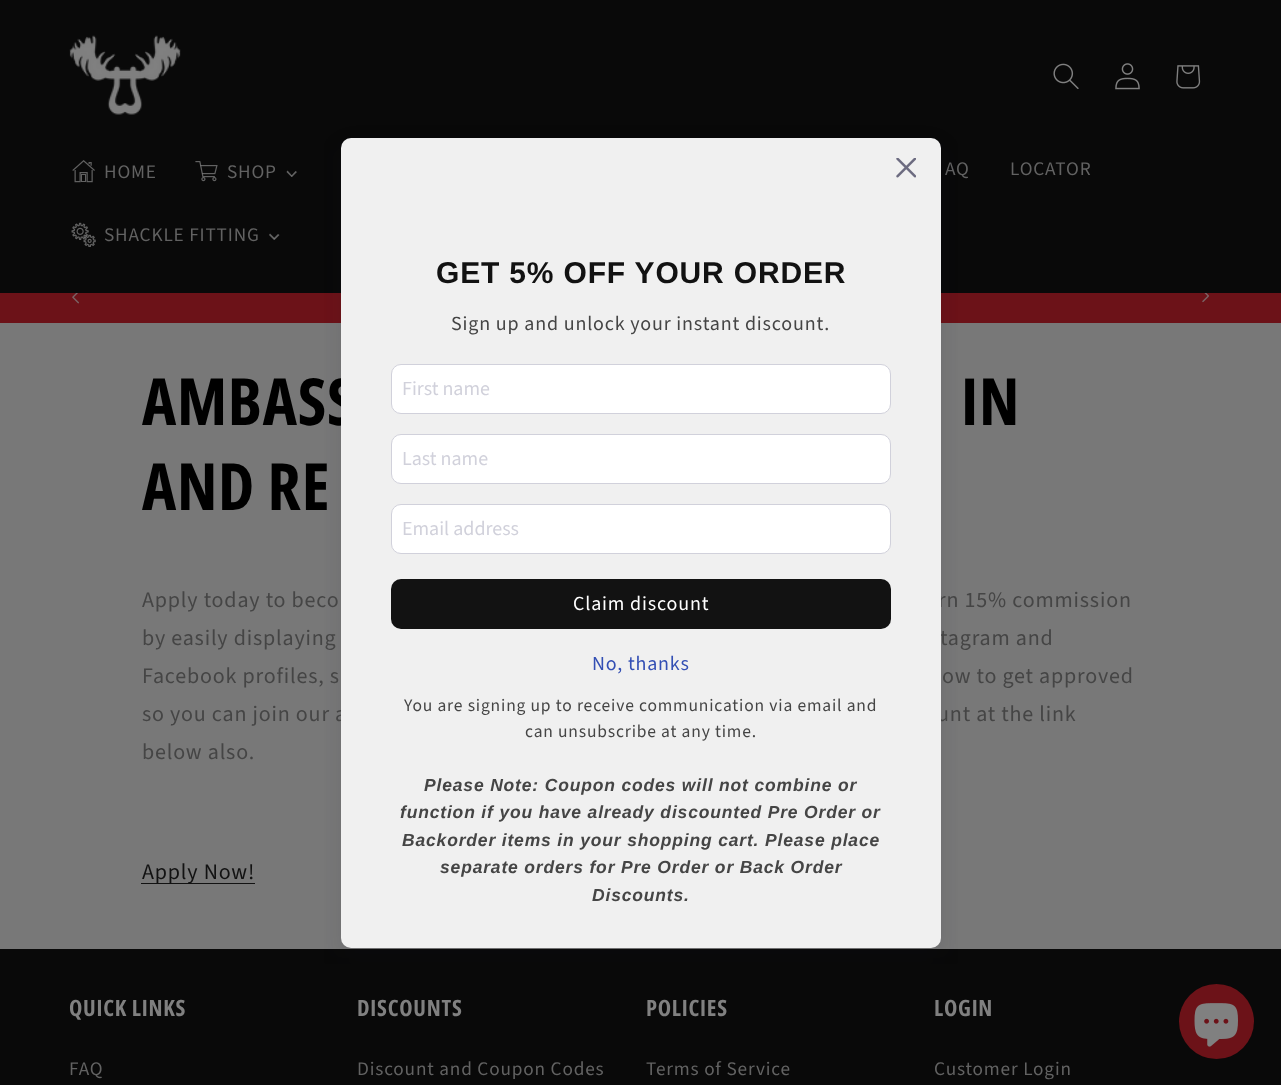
<svg xmlns="http://www.w3.org/2000/svg" width="1281" height="1085">
	<defs>
		<clipPath id="clip1"><rect x="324" y="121" width="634" height="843" /></clipPath>
	</defs>
	<rect width="100%" height="100%" fill="#787878" />
	<rect x="0" y="0" width="1281" height="293" fill="#090909" />
	<image x="69" y="35" width="112" height="80" href="assets/img1.png" />
	<image x="1053" y="63" width="26" height="26" href="assets/img2.png" />
	<image x="1115" y="63" width="25" height="27" href="assets/img3.png" />
	<image x="1176" y="65" width="25" height="24" href="assets/img4.png" />
	<image x="72" y="160" width="23" height="23" href="assets/img5.png" />
	<text x="104" y="178" font-family="Source Sans Pro" font-size="19.25" letter-spacing="0.83" fill="#626262">HOME</text>
	<image x="195" y="161" width="23" height="21" href="assets/img6.png" />
	<text x="227" y="178" font-family="Source Sans Pro" font-size="19.25" letter-spacing="0.83" fill="#626262">SHOP</text>
	<path d="M295.5 171L297 172L292 177L291 176Z" fill="#626262" />
	<path d="M287.5 170.5L292.5 176L291.5 177L286.5 172Z" fill="#808080" fill-opacity="0.75" />
	<g font-family="Source Sans Pro" font-size="19.25" letter-spacing="0.83" fill="#626262">
		<text x="945" y="175">AQ</text>
		<text x="1010" y="175">LOCATOR</text>
	</g>
	<image x="71" y="222" width="25" height="25" href="assets/img7.png" />
	<text x="104" y="241" font-family="Source Sans Pro" font-size="19.25" letter-spacing="0.83" fill="#626262">SHACKLE FITTING</text>
	<path d="M278 234L279.5 235L274.5 240L273.5 238.5Z" fill="#626262" />
	<path d="M270 233.5L275 238.5L274 240L269 235Z" fill="#808080" fill-opacity="0.75" />
	<rect x="0" y="293" width="1281" height="30" fill="#6C1218" />
	<rect x="0" y="949" width="1281" height="136" fill="#090909" />
	<g clip-path="url(#clip1)">
		<rect x="341" y="148" width="600" height="810" rx="10" fill="#121127" fill-opacity="0.1" filter="blur(12.5px)" />
	</g>
	<text x="142" y="425" font-family="Open Sans Condensed" font-size="65" font-weight="700" letter-spacing="0.75" fill="#000000">AMBASS</text>
	<g font-family="Source Sans Pro" font-size="22" letter-spacing="0.83" fill="#454545">
		<text x="938" y="607">rn 15% commission</text>
		<text x="940" y="645">tagram and</text>
		<text x="142" y="721">so you can join our a</text>
		<text x="937" y="721">unt at the link</text>
	</g>
	<rect x="341" y="138" width="600" height="810" rx="10" fill="#F0F0F0" />
	<image x="896" y="158" width="20" height="20" href="assets/img8.png" />
	<text x="436" y="283" font-family="Liberation Sans" font-size="30" font-weight="700" letter-spacing="0.83" fill="#121212">GET 5% OFF YOUR ORDER</text>
	<text x="451" y="330" font-family="Source Sans Pro" font-size="20" letter-spacing="0.83" fill="#454545">Sign up and unlock your instant discount.</text>
	<rect x="391.5" y="364.5" width="499" height="49" rx="9.5" fill="#FFFFFF" stroke="#D1D1DB" />
	<text x="402" y="395" font-family="Source Sans Pro" font-size="20" fill="#D1D1DB">First name</text>
	<rect x="391.5" y="434.5" width="499" height="49" rx="9.5" fill="#FFFFFF" stroke="#D1D1DB" />
	<text x="402" y="465" font-family="Source Sans Pro" font-size="20" fill="#D1D1DB">Last name</text>
	<rect x="391.5" y="504.5" width="499" height="49" rx="9.5" fill="#FFFFFF" stroke="#D1D1DB" />
	<text x="402" y="535" font-family="Source Sans Pro" font-size="20" fill="#D1D1DB">Email address</text>
	<rect x="391" y="579" width="500" height="50" rx="10" fill="#121212" />
	<text x="573" y="610" font-family="Source Sans Pro" font-size="20" letter-spacing="0.83" fill="#FFFFFF">Claim discount</text>
	<text x="592" y="670" font-family="Source Sans Pro" font-size="20" letter-spacing="0.83" fill="#334FB4">No, thanks</text>
	<g font-family="Source Sans Pro" font-size="17.5" letter-spacing="0.83" fill="#454545">
		<text x="404" y="711">You are signing up to receive communication via email and</text>
		<text x="525" y="737">can unsubscribe at any time.</text>
	</g>
	<g font-family="Liberation Sans" font-size="17.5" font-weight="700" font-style="italic" letter-spacing="0.83" fill="#454545">
		<text x="424" y="791">Please Note: Coupon codes will not combine or</text>
		<text x="400" y="818">function if you have already discounted Pre Order or</text>
		<text x="402" y="846">Backorder items in your shopping cart. Please place</text>
		<text x="440" y="873">separate orders for Pre Order or Back Order</text>
		<text x="592" y="901">Discounts.</text>
	</g>
	<image x="72" y="293" width="7" height="11" href="assets/img9.png" />
	<image x="1202" y="293" width="7" height="10" href="assets/img10.png" />
	<g font-family="Open Sans Condensed" font-size="65" font-weight="700" letter-spacing="0.75" fill="#000000">
		<text x="961" y="425">IN</text>
		<text x="142" y="510">AND RE</text>
	</g>
	<g font-family="Source Sans Pro" font-size="22" letter-spacing="0.83" fill="#454545">
		<text x="142" y="607">Apply today to beco</text>
		<text x="142" y="645">by easily displaying</text>
		<text x="142" y="683">Facebook profiles, s</text>
		<text x="942" y="683">ow to get approved</text>
		<text x="142" y="759">below also.</text>
	</g>
	<rect x="141" y="883" width="114" height="1" fill="#121212" />
	<text x="142" y="879" font-family="Source Sans Pro" font-size="22" letter-spacing="0.83" fill="#121212">Apply Now!</text>
	<text x="69" y="1016" font-family="Open Sans Condensed" font-size="22.5" font-weight="700" letter-spacing="0.75" fill="#808080">QUICK LINKS</text>
	<text x="69" y="1075" font-family="Source Sans Pro" font-size="19.25" letter-spacing="0.83" fill="#626262">FAQ</text>
	<text x="357" y="1016" font-family="Open Sans Condensed" font-size="22.5" font-weight="700" letter-spacing="0.75" fill="#808080">DISCOUNTS</text>
	<text x="357" y="1075" font-family="Source Sans Pro" font-size="19.25" letter-spacing="0.83" fill="#626262">Discount and Coupon Codes</text>
	<text x="646" y="1016" font-family="Open Sans Condensed" font-size="22.5" font-weight="700" letter-spacing="0.75" fill="#808080">POLICIES</text>
	<text x="646" y="1075" font-family="Source Sans Pro" font-size="19.25" letter-spacing="0.83" fill="#626262">Terms of Service</text>
	<text x="934" y="1016" font-family="Open Sans Condensed" font-size="22.5" font-weight="700" letter-spacing="0.75" fill="#808080">LOGIN</text>
	<text x="934" y="1075" font-family="Source Sans Pro" font-size="19.25" letter-spacing="0.83" fill="#626262">Customer Login</text>
	<circle cx="1216.5" cy="1021.5" r="37.5" fill="#6C1218" />
	<image x="1194" y="1003" width="44" height="44" href="assets/img11.png" />
</svg>
